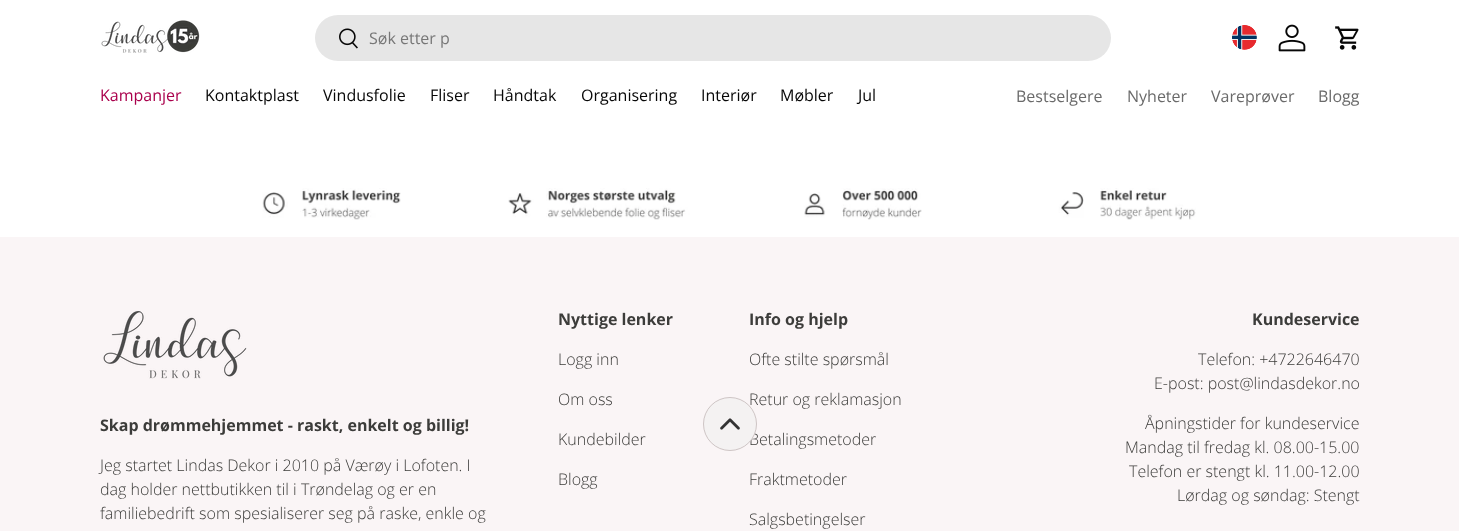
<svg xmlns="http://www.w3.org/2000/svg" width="1459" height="531">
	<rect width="100%" height="100%" fill="#FFFFFF" />
	<image x="101" y="20" width="99" height="33" href="assets/img1.png" />
	<rect x="315" y="15" width="796" height="46" rx="23" fill="#E6E6E6" />
	<image x="339" y="28" width="19" height="21" href="assets/img2.png" />
	<text x="369" y="44" font-family="Open Sans" font-size="16" fill="#777777">Søk etter p</text>
	<image x="1232" y="25" width="25" height="25" href="assets/img3.png" />
	<image x="1278" y="24" width="28" height="28" href="assets/img4.png" />
	<image x="1335" y="26" width="24" height="24" href="assets/img5.png" />
	<text x="100" y="101" font-family="Open Sans" font-size="16" fill="#AA014C">Kampanjer</text>
	<g font-family="Open Sans" font-size="16" fill="#070707">
		<text x="205" y="101">Kontaktplast</text>
		<text x="323" y="101">Vindusfolie</text>
		<text x="430" y="101">Fliser</text>
		<text x="493" y="101">Håndtak</text>
		<text x="581" y="101">Organisering</text>
		<text x="701" y="101">Interiør</text>
		<text x="780" y="101">Møbler</text>
		<text x="858" y="101">Jul</text>
	</g>
	<g font-family="Open Sans" font-size="16" fill="#6A6A6A">
		<text x="1016" y="102">Bestselgere</text>
		<text x="1127" y="102">Nyheter</text>
		<text x="1211" y="102">Vareprøver</text>
		<text x="1318" y="102">Blogg</text>
	</g>
	<image x="262" y="188" width="934" height="32" href="assets/img6.png" />
	<rect x="0" y="237" width="1459" height="294" fill="#FAF5F6" />
	<image x="103" y="311" width="144" height="68" href="assets/img7.png" />
	<text x="100" y="431" font-family="Open Sans" font-size="16" font-weight="700" fill="#3C3C3A">Skap drømmehjemmet - raskt, enkelt og billig!</text>
	<g font-family="Open Sans" font-size="16" font-weight="300" fill="#3C3C3A">
		<text x="100" y="471">Jeg startet Lindas Dekor i 2010 på Værøy i Lofoten. I</text>
		<text x="100" y="495">dag holder nettbutikken til i Trøndelag og er en</text>
		<text x="100" y="519">familiebedrift som spesialiserer seg på raske, enkle og</text>
	</g>
	<text x="558" y="325" font-family="Open Sans" font-size="16" font-weight="700" fill="#3C3C3A">Nyttige lenker</text>
	<g font-family="Open Sans" font-size="16" font-weight="300" fill="#3C3C3A">
		<text x="558" y="365">Logg inn</text>
		<text x="558" y="405">Om oss</text>
		<text x="558" y="445">Kundebilder</text>
		<text x="558" y="485">Blogg</text>
	</g>
	<text x="749" y="325" font-family="Open Sans" font-size="16" font-weight="700" fill="#3C3C3A">Info og hjelp</text>
	<g font-family="Open Sans" font-size="16" font-weight="300" fill="#3C3C3A">
		<text x="749" y="365">Ofte stilte spørsmål</text>
		<text x="749" y="405">Retur og reklamasjon</text>
		<text x="749" y="445">Betalingsmetoder</text>
		<text x="749" y="485">Fraktmetoder</text>
		<text x="749" y="525">Salgsbetingelser</text>
	</g>
	<text x="1252" y="325" font-family="Open Sans" font-size="16" font-weight="700" fill="#3C3C3A">Kundeservice</text>
	<g font-family="Open Sans" font-size="16" font-weight="300" fill="#3C3C3A">
		<text x="1198" y="365">Telefon: +4722646470</text>
		<text x="1154" y="389">E-post: post@lindasdekor.no</text>
		<text x="1145" y="429">Åpningstider for kundeservice</text>
		<text x="1125" y="453">Mandag til fredag kl. 08.00-15.00</text>
		<text x="1129" y="477">Telefon er stengt kl. 11.00-12.00</text>
		<text x="1177" y="501">Lørdag og søndag: Stengt</text>
	</g>
	<circle cx="730" cy="424" r="26.5" fill="#F4F2F2" stroke="#CEC5C5" />
	<image x="720" y="418" width="20" height="12" href="assets/img8.png" />
</svg>
